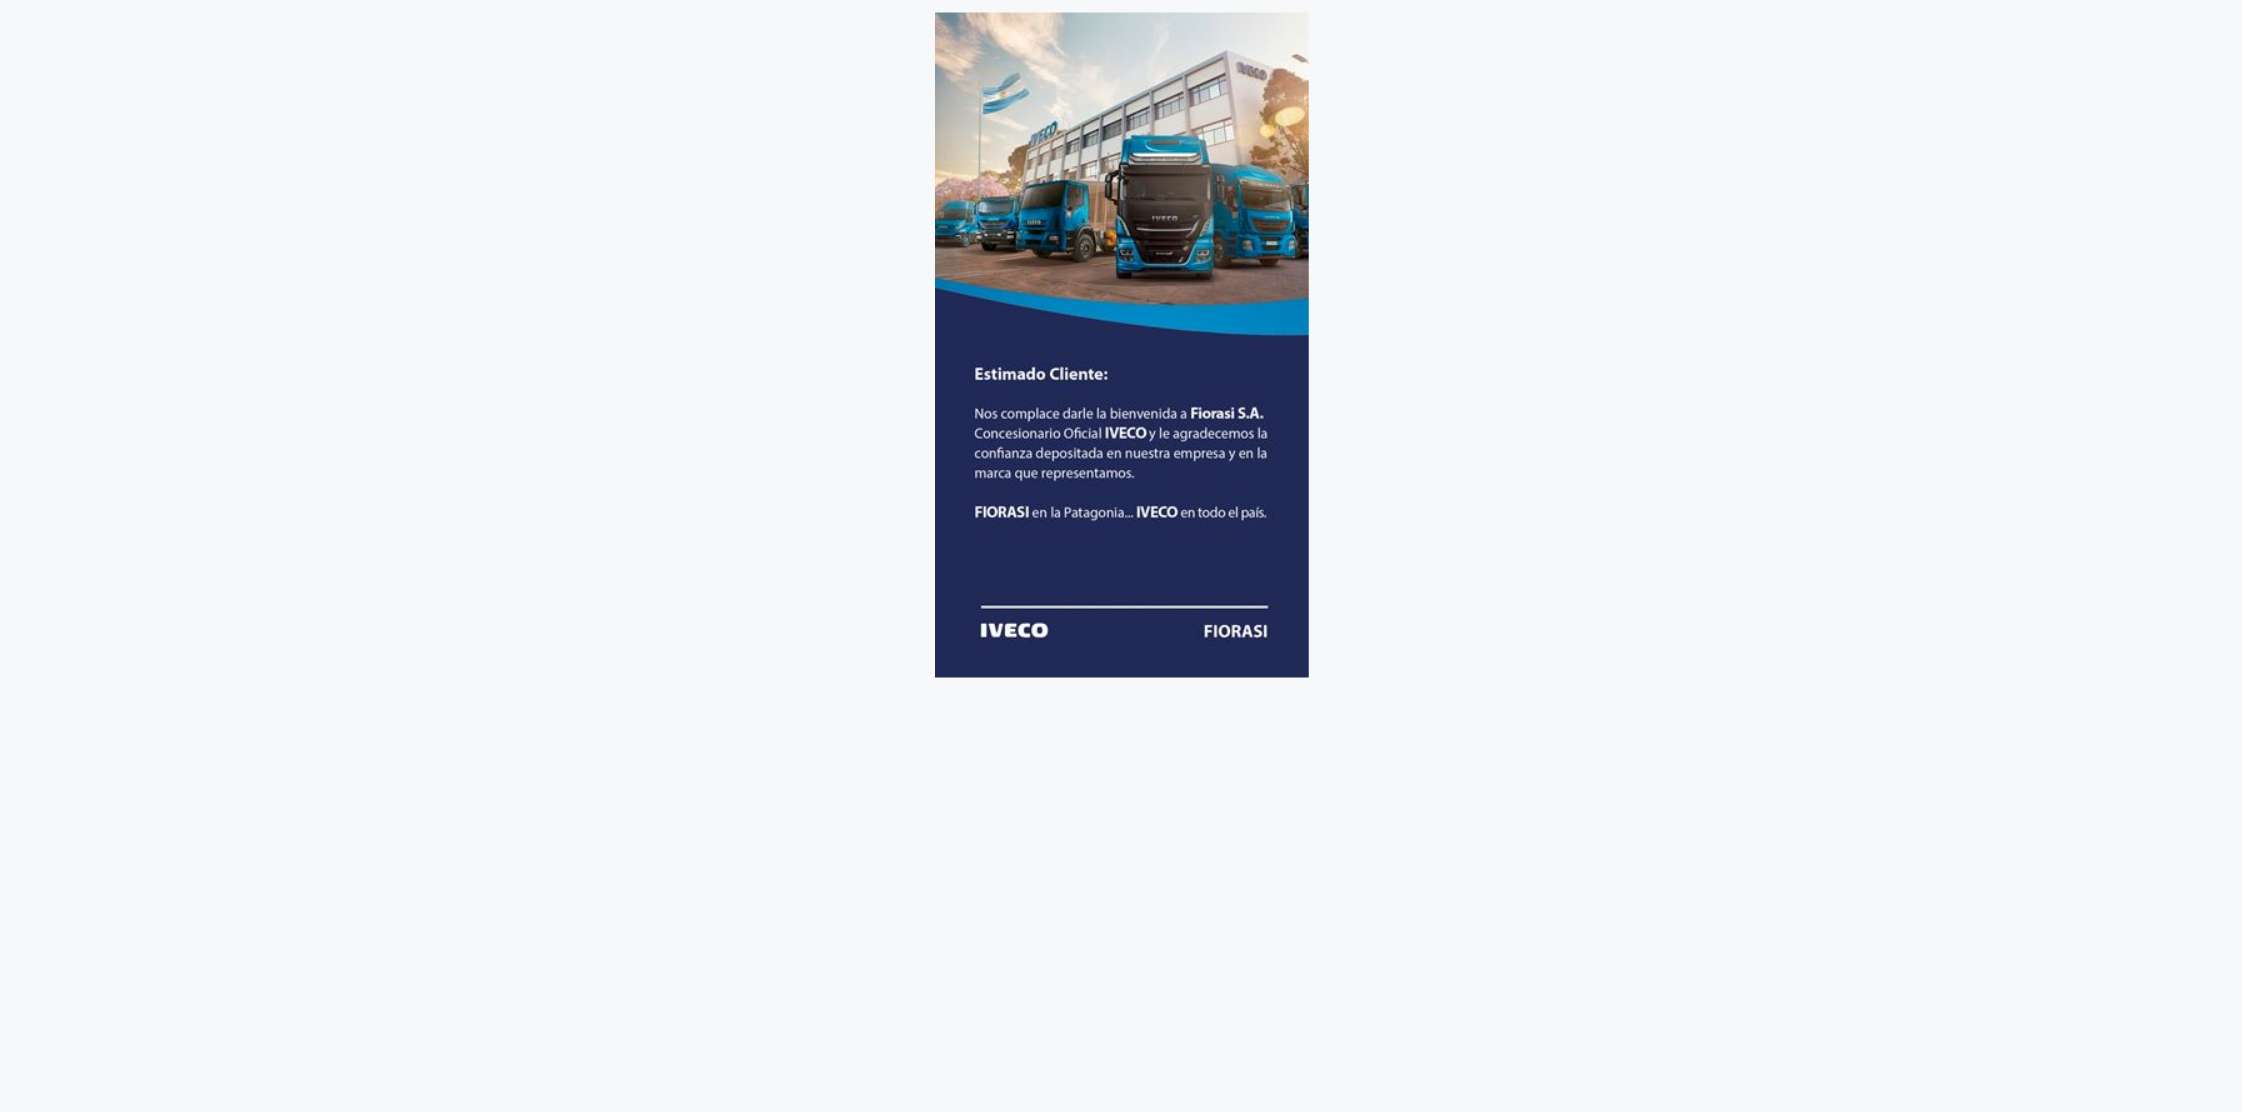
<svg xmlns="http://www.w3.org/2000/svg" width="2242" height="1112">
	<rect width="100%" height="100%" fill="#F7F8F9" />
	<image x="935" y="12" width="374" height="666" href="assets/img1.png" />
</svg>
